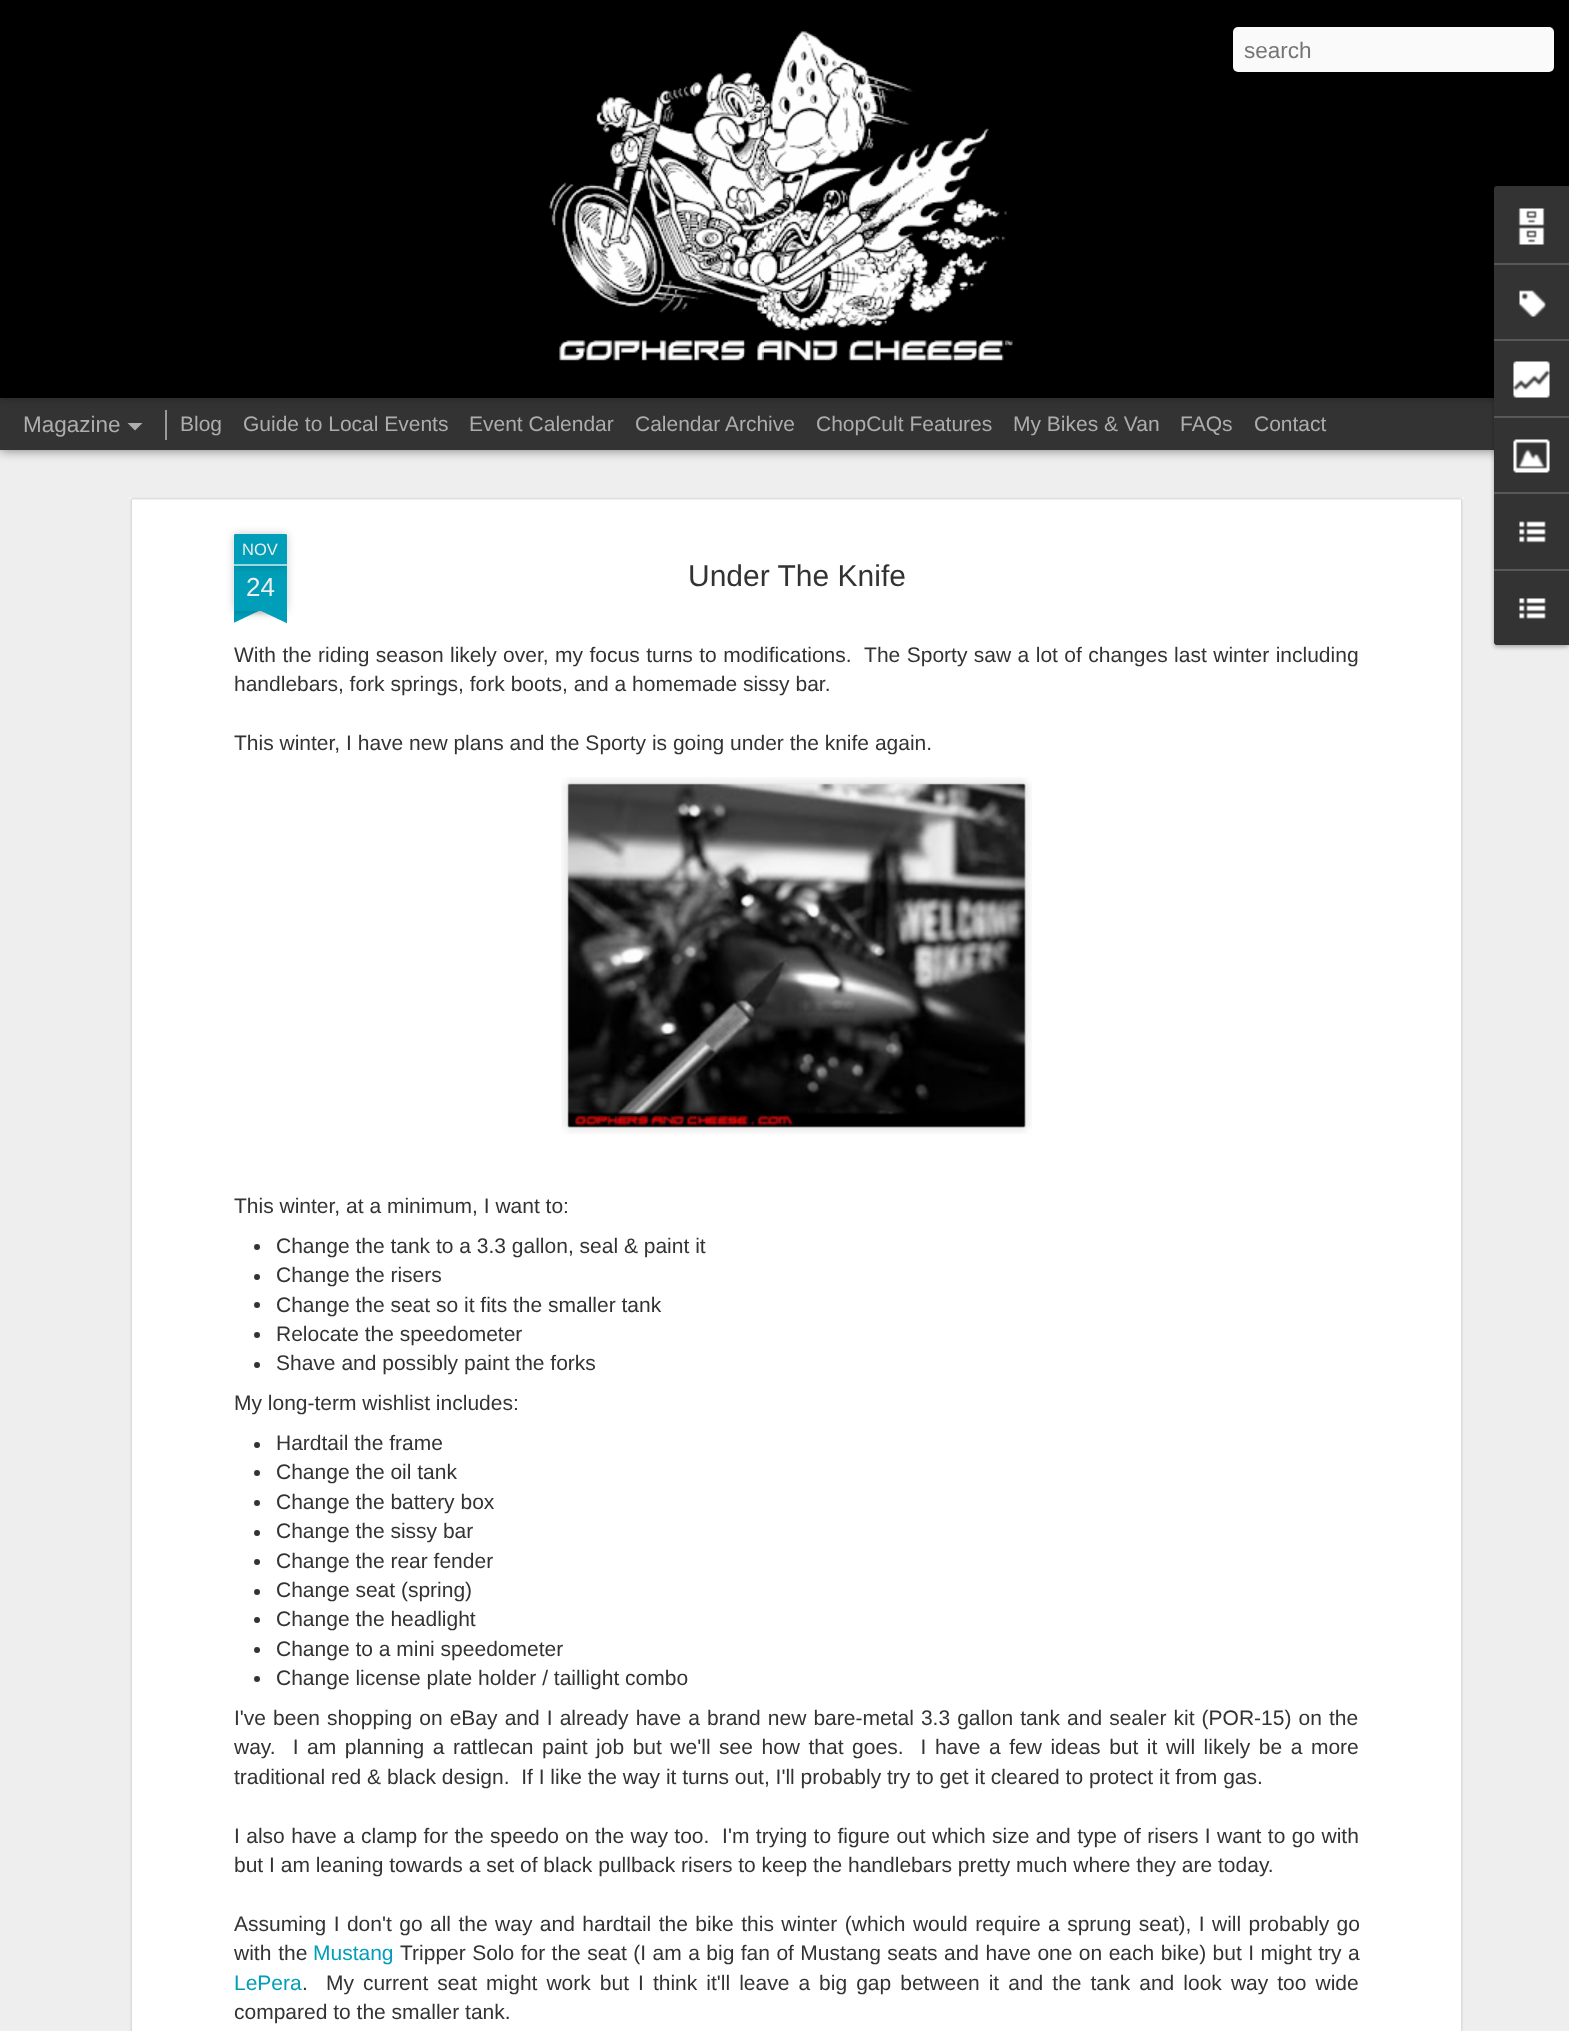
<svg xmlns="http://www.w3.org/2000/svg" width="1569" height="2031">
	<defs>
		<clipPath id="clip1"><rect x="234" y="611" width="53" height="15" /></clipPath>
		<clipPath id="clip2"><rect x="234" y="611" width="53" height="15" /></clipPath>
	</defs>
	<rect width="100%" height="100%" fill="#EEEEEE" />
	<rect x="0" y="398" width="1569" height="52" fill="#000000" fill-opacity="0.5" filter="blur(6px)" />
	<rect x="0" y="398" width="1494" height="52" fill="#333333" />
	<rect x="165" y="410" width="2" height="30" fill="#999999" />
	<rect x="0" y="0" width="1569" height="398" fill="#000000" fill-opacity="0.3" filter="blur(4px)" />
	<rect x="0" y="0" width="1569" height="398" fill="#000000" />
	<image x="548" y="31" width="465" height="330" href="assets/img1.png" />
	<rect x="1233" y="27" width="321" height="45" rx="5" fill="#FAFAFA" />
	<text x="1244" y="58" font-family="Liberation Sans" font-size="22.5" fill="#757575">search</text>
	<text x="23" y="432" font-family="Liberation Sans" font-size="22.5" fill="#ADADAD">Magazine</text>
	<path d="M127.5 423H142.5L135 430.5Z" fill="#ADADAD" />
	<g font-family="Liberation Sans" font-size="21" fill="#ADADAD">
		<text x="180" y="431">Blog</text>
		<text x="243" y="431">Guide to Local Events</text>
		<text x="469" y="431">Event Calendar</text>
		<text x="635" y="431">Calendar Archive</text>
		<text x="816" y="431">ChopCult Features</text>
		<text x="1013" y="431">My Bikes &amp; Van</text>
		<text x="1180" y="431">FAQs</text>
		<text x="1254" y="431">Contact</text>
	</g>
	<rect x="1494" y="188" width="75" height="459" rx="3" fill="#000000" fill-opacity="0.3" filter="blur(2px)" />
	<path d="M1497 186H1569V645H1497C1495.5 645 1494 643.5 1494 642V189C1494 187.5 1495.5 186 1497 186Z" fill="#333333" />
	<path d="M1497 186H1569V263H1494V189C1494 187.5 1495.5 186 1497 186Z" fill="#333333" />
	<image x="1518" y="208" width="27" height="37" href="assets/img2.png" />
	<rect x="1494" y="263" width="75" height="2" fill="#585858" />
	<image x="1519" y="290" width="27" height="27" href="assets/img3.png" />
	<rect x="1494" y="339" width="75" height="2" fill="#585858" />
	<image x="1513" y="361" width="37" height="37" href="assets/img4.png" />
	<rect x="1494" y="416" width="75" height="2" fill="#585858" />
	<image x="1513" y="439" width="37" height="34" href="assets/img5.png" />
	<rect x="1494" y="492" width="75" height="2" fill="#585858" />
	<image x="1519" y="521" width="27" height="22" href="assets/img6.png" />
	<path d="M1494 569H1569V645H1497C1495.5 645 1494 643.5 1494 642Z" fill="#333333" />
	<rect x="1494" y="569" width="75" height="2" fill="#585858" />
	<image x="1519" y="598" width="27" height="21" href="assets/img7.png" />
	<rect x="129" y="497" width="1335" height="1534" fill="#FFFFFF" />
	<image x="129" y="497" width="1335" height="1534" href="assets/img8.png" />
	<rect x="234" y="566" width="53" height="45" fill="#000000" fill-opacity="0.2" filter="blur(4px)" />
	<rect x="234" y="566" width="53" height="45" fill="#009EB8" />
	<rect x="234" y="534" width="53" height="32" rx="1.5" fill="#000000" fill-opacity="0.2" filter="blur(4px)" />
	<path d="M235.5 534H285.5C286.5 534 287 534.5 287 535.5V566H234V535.5C234 534.5 234.5 534 235.5 534Z" fill="#009EB8" />
	<rect x="234" y="564" width="53" height="2" fill="#99D8E3" />
	<text x="242" y="555" font-family="Liberation Sans" font-size="16.5" fill="#EEEEEE">NOV</text>
	<text x="246" y="596" font-family="Liberation Sans" font-size="26" fill="#EEEEEE">24</text>
	<g clip-path="url(#clip1)">
		<rect x="221" y="596" width="75" height="15" fill="#000000" fill-opacity="0.2" filter="blur(4px)" />
	</g>
	<g clip-path="url(#clip2)">
		<path d="M221 612L289 580L295 594L227 626Z" fill="#009EB8" />
	</g>
	<g clip-path="url(#clip1)">
		<rect x="225" y="596" width="75" height="15" fill="#000000" fill-opacity="0.2" filter="blur(4px)" />
	</g>
	<g clip-path="url(#clip2)">
		<path d="M232 580L300 612L293 626L225 594Z" fill="#009EB8" />
	</g>
	<text x="688" y="586" font-family="Liberation Sans" font-size="30" fill="#333333">Under The Knife</text>
	<g font-family="Liberation Sans" font-size="21" fill="#333333">
		<text x="234" y="662" word-spacing="0.6" xml:space="preserve">With the riding season likely over, my focus turns to modifications.  The Sporty saw a lot of changes last winter including</text>
		<text x="234" y="691">handlebars, fork springs, fork boots, and a homemade sissy bar.</text>
		<text x="234" y="750">This winter, I have new plans and the Sporty is going under the knife again.</text>
	</g>
	<image x="561" y="777" width="471" height="357" href="assets/img9.png" />
	<image x="567" y="783" width="459" height="345" href="assets/img10.png" />
	<text x="234" y="1213" font-family="Liberation Sans" font-size="21" fill="#333333">This winter, at a minimum, I want to:</text>
	<circle cx="257" cy="1247" r="3" fill="#333333" />
	<text x="276" y="1253" font-family="Liberation Sans" font-size="21" fill="#333333">Change the tank to a 3.3 gallon, seal &amp; paint it</text>
	<circle cx="257" cy="1277" r="3" fill="#333333" />
	<text x="276" y="1282" font-family="Liberation Sans" font-size="21" fill="#333333">Change the risers</text>
	<circle cx="257" cy="1305" r="3" fill="#333333" />
	<text x="276" y="1312" font-family="Liberation Sans" font-size="21" fill="#333333">Change the seat so it fits the smaller tank</text>
	<circle cx="257" cy="1335" r="3" fill="#333333" />
	<text x="276" y="1341" font-family="Liberation Sans" font-size="21" fill="#333333">Relocate the speedometer</text>
	<circle cx="257" cy="1365" r="3" fill="#333333" />
	<g font-family="Liberation Sans" font-size="21" fill="#333333">
		<text x="276" y="1370">Shave and possibly paint the forks</text>
		<text x="234" y="1410">My long-term wishlist includes:</text>
	</g>
	<circle cx="257" cy="1445" r="3" fill="#333333" />
	<text x="276" y="1450" font-family="Liberation Sans" font-size="21" fill="#333333">Hardtail the frame</text>
	<circle cx="257" cy="1473" r="3" fill="#333333" />
	<text x="276" y="1479" font-family="Liberation Sans" font-size="21" fill="#333333">Change the oil tank</text>
	<circle cx="257" cy="1503" r="3" fill="#333333" />
	<text x="276" y="1509" font-family="Liberation Sans" font-size="21" fill="#333333">Change the battery box</text>
	<circle cx="257" cy="1533" r="3" fill="#333333" />
	<text x="276" y="1538" font-family="Liberation Sans" font-size="21" fill="#333333">Change the sissy bar</text>
	<circle cx="257" cy="1562" r="3" fill="#333333" />
	<text x="276" y="1568" font-family="Liberation Sans" font-size="21" fill="#333333">Change the rear fender</text>
	<circle cx="257" cy="1592" r="3" fill="#333333" />
	<text x="276" y="1597" font-family="Liberation Sans" font-size="21" fill="#333333">Change seat (spring)</text>
	<circle cx="257" cy="1620" r="3" fill="#333333" />
	<text x="276" y="1626" font-family="Liberation Sans" font-size="21" fill="#333333">Change the headlight</text>
	<circle cx="257" cy="1650" r="3" fill="#333333" />
	<text x="276" y="1656" font-family="Liberation Sans" font-size="21" fill="#333333">Change to a mini speedometer</text>
	<circle cx="257" cy="1679" r="3" fill="#333333" />
	<g font-family="Liberation Sans" font-size="21" fill="#333333">
		<text x="276" y="1685">Change license plate holder / taillight combo</text>
		<text x="234" y="1725" word-spacing="1.25">I've been shopping on eBay and I already have a brand new bare-metal 3.3 gallon tank and sealer kit (POR-15) on the</text>
		<text x="234" y="1754" word-spacing="2.7" xml:space="preserve">way.  I am planning a rattlecan paint job but we'll see how that goes.  I have a few ideas but it will likely be a more</text>
		<text x="234" y="1784" xml:space="preserve">traditional red &amp; black design.  If I like the way it turns out, I'll probably try to get it cleared to protect it from gas.</text>
		<text x="234" y="1843" word-spacing="0.55" xml:space="preserve">I also have a clamp for the speedo on the way too.  I'm trying to figure out which size and type of risers I want to go with</text>
		<text x="234" y="1872">but I am leaning towards a set of black pullback risers to keep the handlebars pretty much where they are today.</text>
		<text x="234" y="1931" word-spacing="1.6">Assuming I don't go all the way and hardtail the bike this winter (which would require a sprung seat), I will probably go</text>
		<text x="234" y="1960" word-spacing="1">with the</text>
	</g>
	<text x="313" y="1960" font-family="Liberation Sans" font-size="21" fill="#009EB8">Mustang</text>
	<text x="400" y="1960" word-spacing="0.6" font-family="Liberation Sans" font-size="21" fill="#333333">Tripper Solo for the seat (I am a big fan of Mustang seats and have one on each bike) but I might try a</text>
	<text x="234" y="1990" font-family="Liberation Sans" font-size="21" fill="#009EB8">LePera</text>
	<g font-family="Liberation Sans" font-size="21" fill="#333333">
		<text x="302" y="1990" word-spacing="3.2" xml:space="preserve">.  My current seat might work but I think it'll leave a big gap between it and the tank and look way too wide</text>
		<text x="234" y="2019">compared to the smaller tank.</text>
	</g>
</svg>
